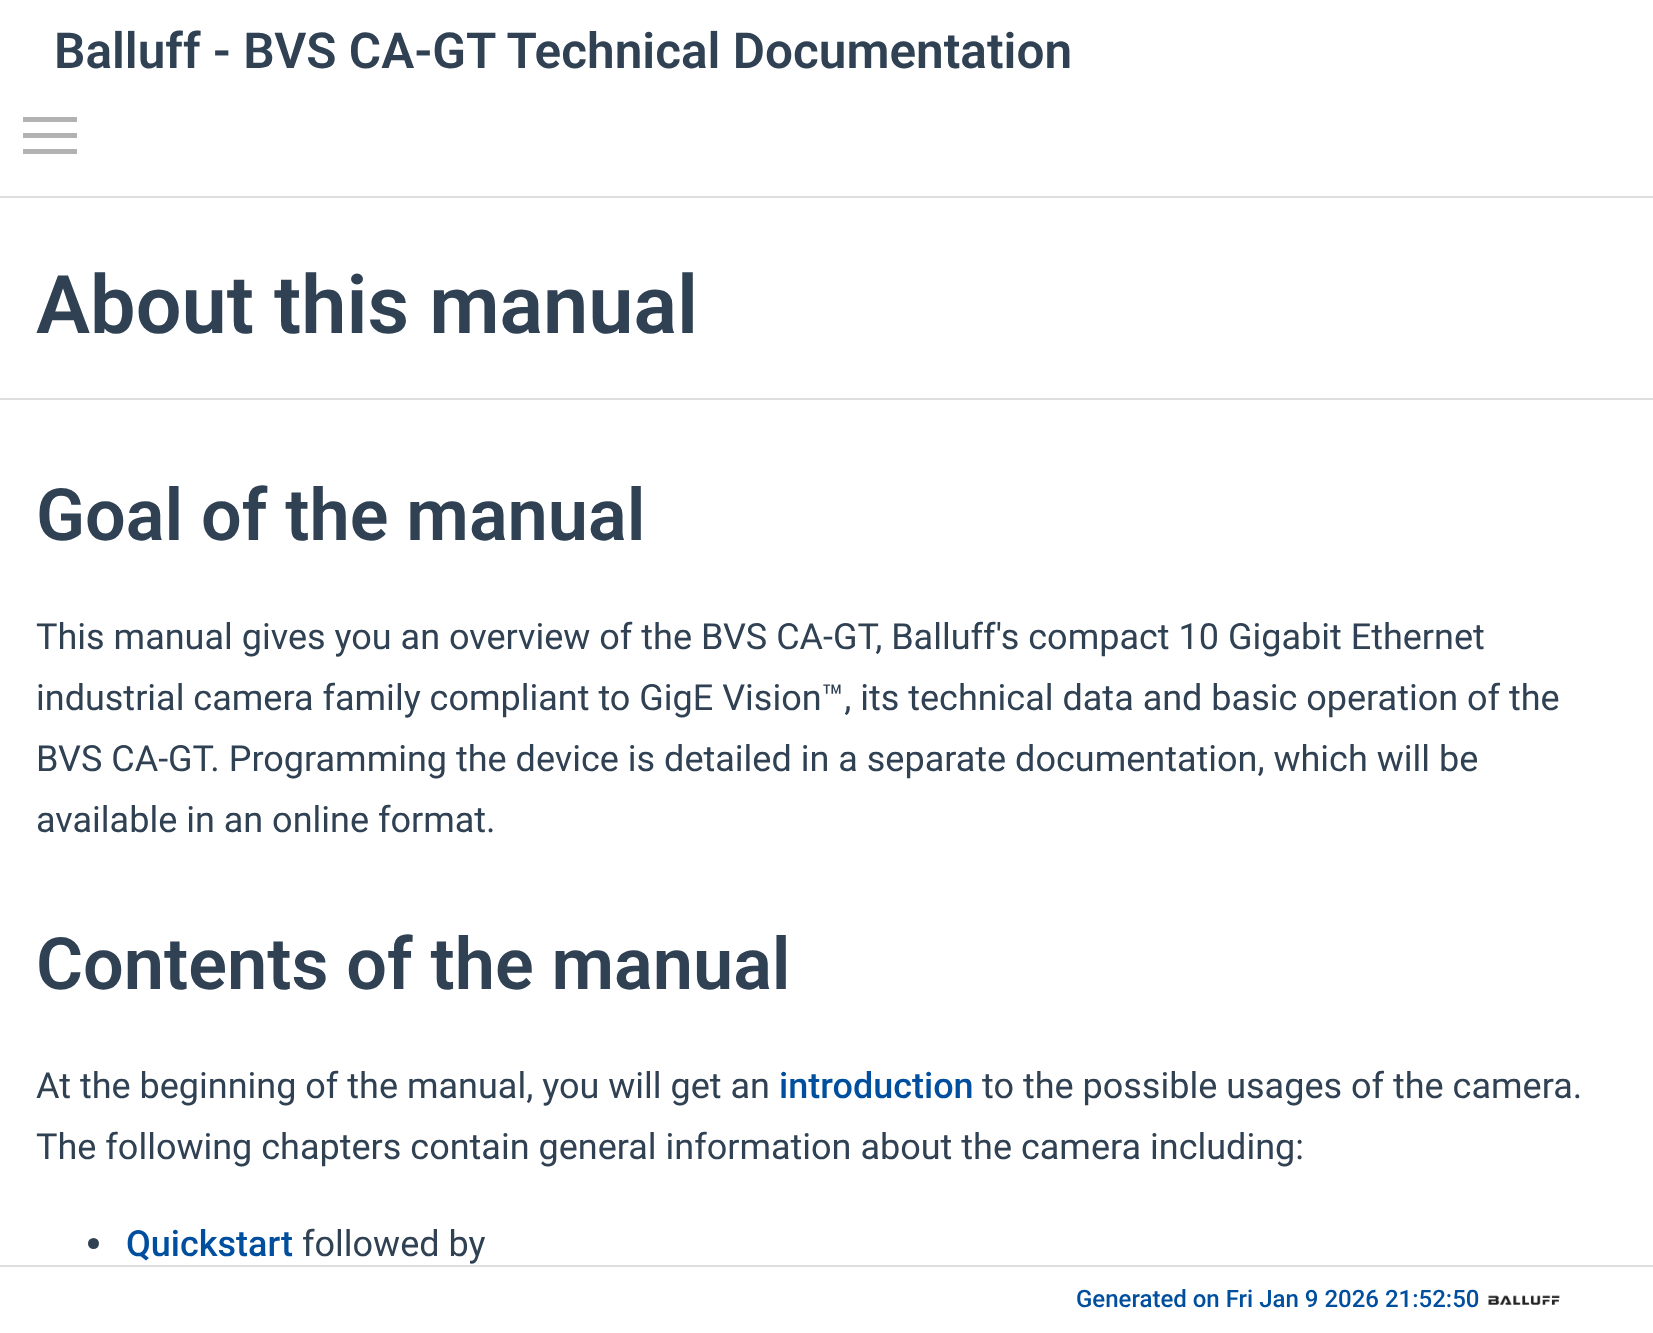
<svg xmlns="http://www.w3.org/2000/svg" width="1653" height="1333">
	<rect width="100%" height="100%" fill="#FFFFFF" />
	<rect x="0" y="196" width="1653" height="2" fill="#DEDEDE" />
	<text x="54" y="68" font-family="Roboto" font-size="49.5" font-weight="600" fill="#2F4153">Balluff - BVS CA-GT Technical Documentation</text>
	<rect x="23" y="133" width="54" height="5" fill="#B2B2B2" />
	<rect x="23" y="117" width="54" height="5" fill="#B2B2B2" />
	<rect x="23" y="149" width="54" height="5" fill="#B2B2B2" />
	<rect x="0" y="398" width="1653" height="2" fill="#DEDEDE" />
	<text x="36" y="333" font-family="Roboto" font-size="81" font-weight="600" fill="#2F4153">About this manual</text>
	<text x="36" y="540" font-family="Roboto" font-size="72" font-weight="600" fill="#2F4153">Goal of the manual</text>
	<g font-family="Roboto" font-size="36" fill="#2F4153">
		<text x="36" y="649">This manual gives you an overview of the BVS CA-GT, Balluff's compact 10 Gigabit Ethernet</text>
		<text x="36" y="710">industrial camera family compliant to GigE Vision™, its technical data and basic operation of the</text>
		<text x="36" y="771">BVS CA-GT. Programming the device is detailed in a separate documentation, which will be</text>
		<text x="36" y="832">available in an online format.</text>
	</g>
	<text x="36" y="989" font-family="Roboto" font-size="72" font-weight="600" fill="#2F4153">Contents of the manual</text>
	<text x="36" y="1098" font-family="Roboto" font-size="36" fill="#2F4153">At the beginning of the manual, you will get an</text>
	<text x="779" y="1098" font-family="Roboto" font-size="36" font-weight="500" fill="#004E9E">introduction</text>
	<g font-family="Roboto" font-size="36" fill="#2F4153">
		<text x="982" y="1098">to the possible usages of the camera.</text>
		<text x="36" y="1159">The following chapters contain general information about the camera including:</text>
	</g>
	<circle cx="93.5" cy="1243.5" r="5.5" fill="#2F4153" />
	<text x="126" y="1256" font-family="Roboto" font-size="36" font-weight="500" fill="#004E9E">Quickstart</text>
	<text x="302" y="1256" font-family="Roboto" font-size="36" fill="#2F4153">followed by</text>
	<rect x="0" y="1265" width="1653" height="2" fill="#DEDEDE" />
	<text x="1076" y="1307" font-family="Roboto" font-size="24" font-weight="500" fill="#004E9E">Generated on Fri Jan 9 2026 21:52:50</text>
	<image x="1488" y="1295" width="72" height="10" href="assets/img1.png" />
</svg>
